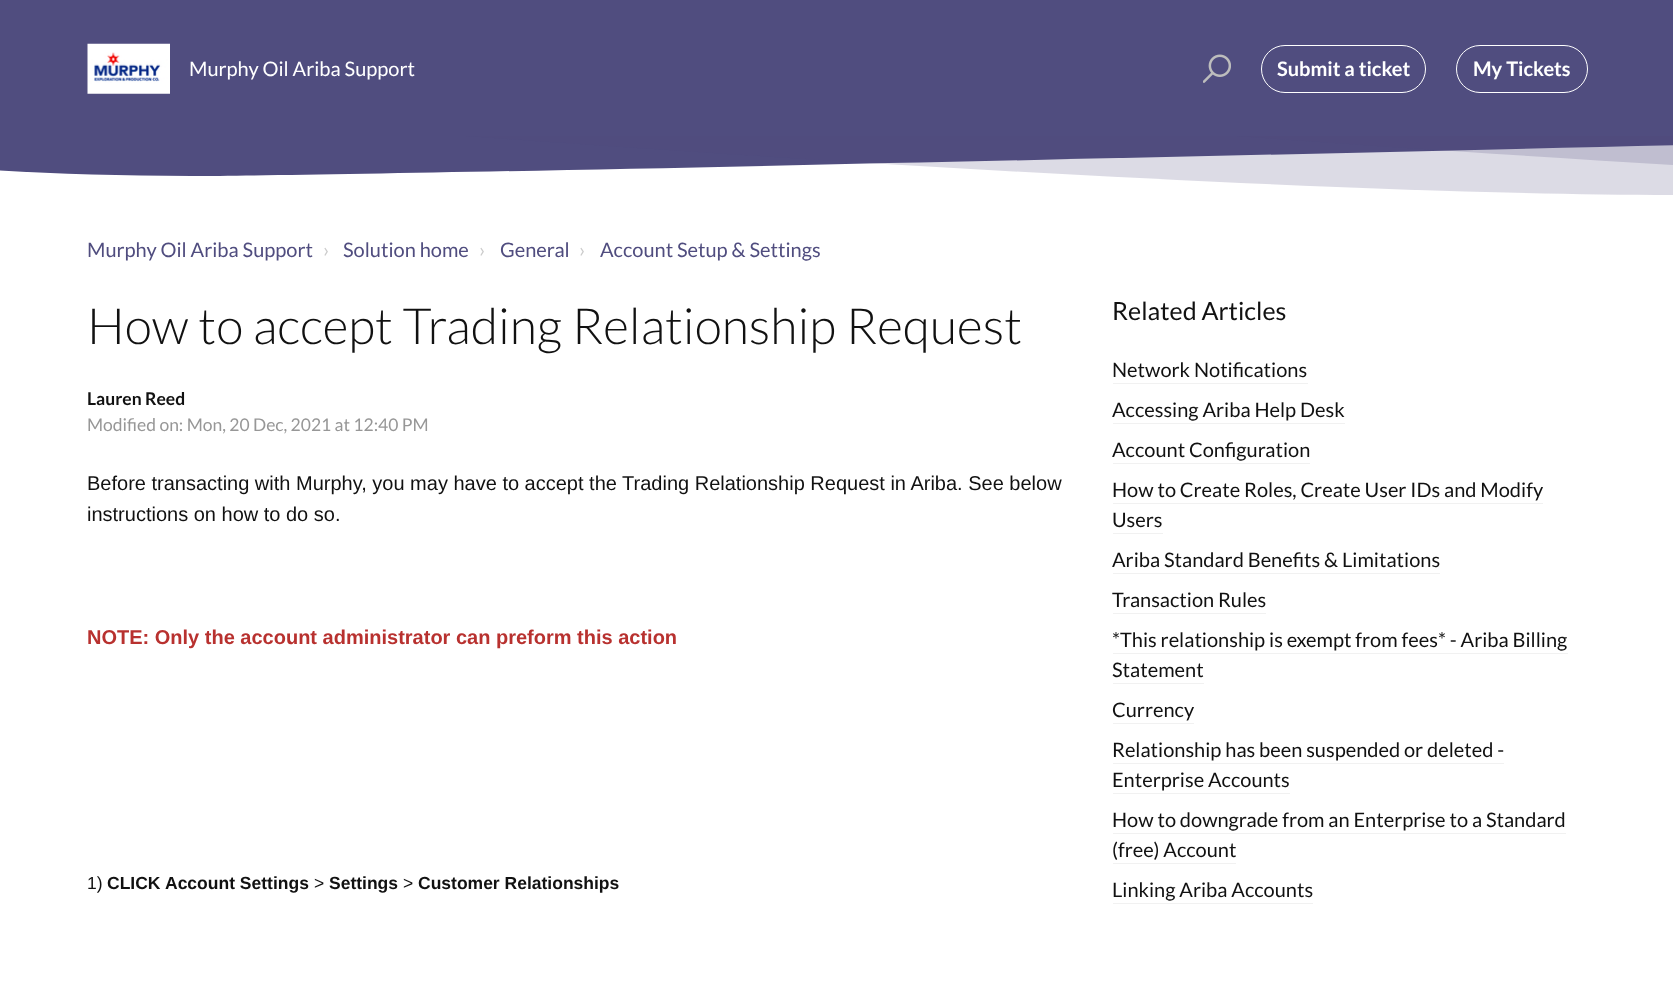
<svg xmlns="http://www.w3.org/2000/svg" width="1673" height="1008">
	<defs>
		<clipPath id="clip1"><rect x="0" y="136" width="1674" height="59" /></clipPath>
	</defs>
	<rect width="100%" height="100%" fill="#FFFFFF" />
	<rect x="0" y="0" width="1673" height="136" fill="#504D7F" />
	<image x="87" y="43" width="83" height="51" href="assets/img1.png" />
	<text x="189" y="76" font-family="Lato" font-size="20" fill="#FFFFFF">Murphy Oil Ariba Support</text>
	<image x="1203" y="54" width="28" height="29" href="assets/img2.png" />
	<rect x="1261.5" y="45.5" width="164" height="47" rx="23.5" fill="none" stroke="#FFFFFF" />
	<text x="1277" y="76" font-family="Lato" font-size="20" font-weight="700" fill="#FFFFFF">Submit a ticket</text>
	<rect x="1456.5" y="45.5" width="131" height="47" rx="23.5" fill="none" stroke="#FFFFFF" />
	<text x="1473" y="76" font-family="Lato" font-size="20" font-weight="700" fill="#FFFFFF">My Tickets</text>
	<path d="M192 176C416 176 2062 136 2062 136H-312C-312 136-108 176 192 176Z" fill="#504D7F" />
	<g clip-path="url(#clip1)">
		<path d="M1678 195C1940 195 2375 100 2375 100H0C0 100 1121 195 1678 195Z" fill="#504D7F" fill-opacity="0.2" />
		<path d="M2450 195C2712 195 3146 100 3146 100H771C771 100 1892 195 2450 195Z" fill="#504D7F" fill-opacity="0.2" />
	</g>
	<text x="87" y="257" font-family="Lato" font-size="20" fill="#504D7F">Murphy Oil Ariba Support</text>
	<text x="323" y="257" font-family="Lato" font-size="20" fill="#CCCCCC">›</text>
	<text x="343" y="257" font-family="Lato" font-size="20" fill="#504D7F">Solution home</text>
	<text x="479" y="257" font-family="Lato" font-size="20" fill="#CCCCCC">›</text>
	<text x="500" y="257" font-family="Lato" font-size="20" fill="#504D7F">General</text>
	<text x="579" y="257" font-family="Lato" font-size="20" fill="#CCCCCC">›</text>
	<text x="600" y="257" font-family="Lato" font-size="20" fill="#504D7F">Account Setup &amp; Settings</text>
	<text x="87" y="344" font-family="Lato" font-size="50" font-weight="300" fill="#111111">How to accept Trading Relationship Request</text>
	<text x="87" y="405" font-family="Lato" font-size="17.5" font-weight="700" fill="#111111">Lauren Reed</text>
	<text x="87" y="431" font-family="Lato" font-size="17.5" fill="#979797">Modified on: Mon, 20 Dec, 2021 at 12:40 PM</text>
	<g font-family="Liberation Sans" font-size="20" fill="#111111">
		<text x="87" y="490">Before transacting with Murphy, you may have to accept the Trading Relationship Request in Ariba. See below</text>
		<text x="87" y="521">instructions on how to do so.</text>
	</g>
	<text x="87" y="644" font-family="Liberation Sans" font-size="20" font-weight="700" fill="#B8312F">NOTE: Only the account administrator can preform this action</text>
	<text x="87" y="889" font-family="Liberation Sans" font-size="17.5" fill="#111111">1)</text>
	<g font-family="Liberation Sans" font-size="17.5" font-weight="700" fill="#111111">
		<text x="107" y="889">CLICK</text>
		<text x="165" y="889">Account Settings</text>
	</g>
	<text x="314" y="889" font-family="Liberation Sans" font-size="17.5" fill="#111111">&gt;</text>
	<text x="329" y="889" font-family="Liberation Sans" font-size="17.5" font-weight="700" fill="#111111">Settings</text>
	<text x="403" y="889" font-family="Liberation Sans" font-size="17.5" fill="#111111">&gt;</text>
	<text x="418" y="889" font-family="Liberation Sans" font-size="17.5" font-weight="700" fill="#111111">Customer Relationships</text>
	<text x="1112" y="320" font-family="Lato" font-size="25" fill="#111111">Related Articles</text>
	<text x="1112" y="377" font-family="Lato" font-size="20" fill="#111111">Network Notifications</text>
	<rect x="1113" y="383" width="195" height="1" fill="#F1F1F1" />
	<text x="1112" y="417" font-family="Lato" font-size="20" fill="#111111">Accessing Ariba Help Desk</text>
	<rect x="1113" y="423" width="232" height="1" fill="#F1F1F1" />
	<text x="1112" y="457" font-family="Lato" font-size="20" fill="#111111">Account Configuration</text>
	<rect x="1113" y="463" width="197" height="1" fill="#F1F1F1" />
	<text x="1112" y="497" font-family="Lato" font-size="20" fill="#111111">How to Create Roles, Create User IDs and Modify</text>
	<rect x="1113" y="503" width="430" height="1" fill="#F1F1F1" />
	<text x="1112" y="527" font-family="Lato" font-size="20" fill="#111111">Users</text>
	<rect x="1113" y="533" width="50" height="1" fill="#F1F1F1" />
	<text x="1112" y="567" font-family="Lato" font-size="20" fill="#111111">Ariba Standard Benefits &amp; Limitations</text>
	<rect x="1113" y="573" width="327" height="1" fill="#F1F1F1" />
	<text x="1112" y="607" font-family="Lato" font-size="20" fill="#111111">Transaction Rules</text>
	<rect x="1113" y="613" width="153" height="1" fill="#F1F1F1" />
	<text x="1112" y="647" font-family="Lato" font-size="20" fill="#111111">*This relationship is exempt from fees* - Ariba Billing</text>
	<rect x="1113" y="653" width="455" height="1" fill="#F1F1F1" />
	<text x="1112" y="677" font-family="Lato" font-size="20" fill="#111111">Statement</text>
	<rect x="1113" y="683" width="91" height="1" fill="#F1F1F1" />
	<text x="1112" y="717" font-family="Lato" font-size="20" fill="#111111">Currency</text>
	<rect x="1113" y="723" width="81" height="1" fill="#F1F1F1" />
	<text x="1112" y="757" font-family="Lato" font-size="20" fill="#111111">Relationship has been suspended or deleted -</text>
	<rect x="1113" y="763" width="391" height="1" fill="#F1F1F1" />
	<text x="1112" y="787" font-family="Lato" font-size="20" fill="#111111">Enterprise Accounts</text>
	<rect x="1113" y="793" width="177" height="1" fill="#F1F1F1" />
	<text x="1112" y="827" font-family="Lato" font-size="20" fill="#111111">How to downgrade from an Enterprise to a Standard</text>
	<rect x="1113" y="833" width="453" height="1" fill="#F1F1F1" />
	<text x="1112" y="857" font-family="Lato" font-size="20" fill="#111111">(free) Account</text>
	<rect x="1113" y="863" width="123" height="1" fill="#F1F1F1" />
	<text x="1112" y="897" font-family="Lato" font-size="20" fill="#111111">Linking Ariba Accounts</text>
	<rect x="1113" y="903" width="200" height="1" fill="#F1F1F1" />
</svg>
